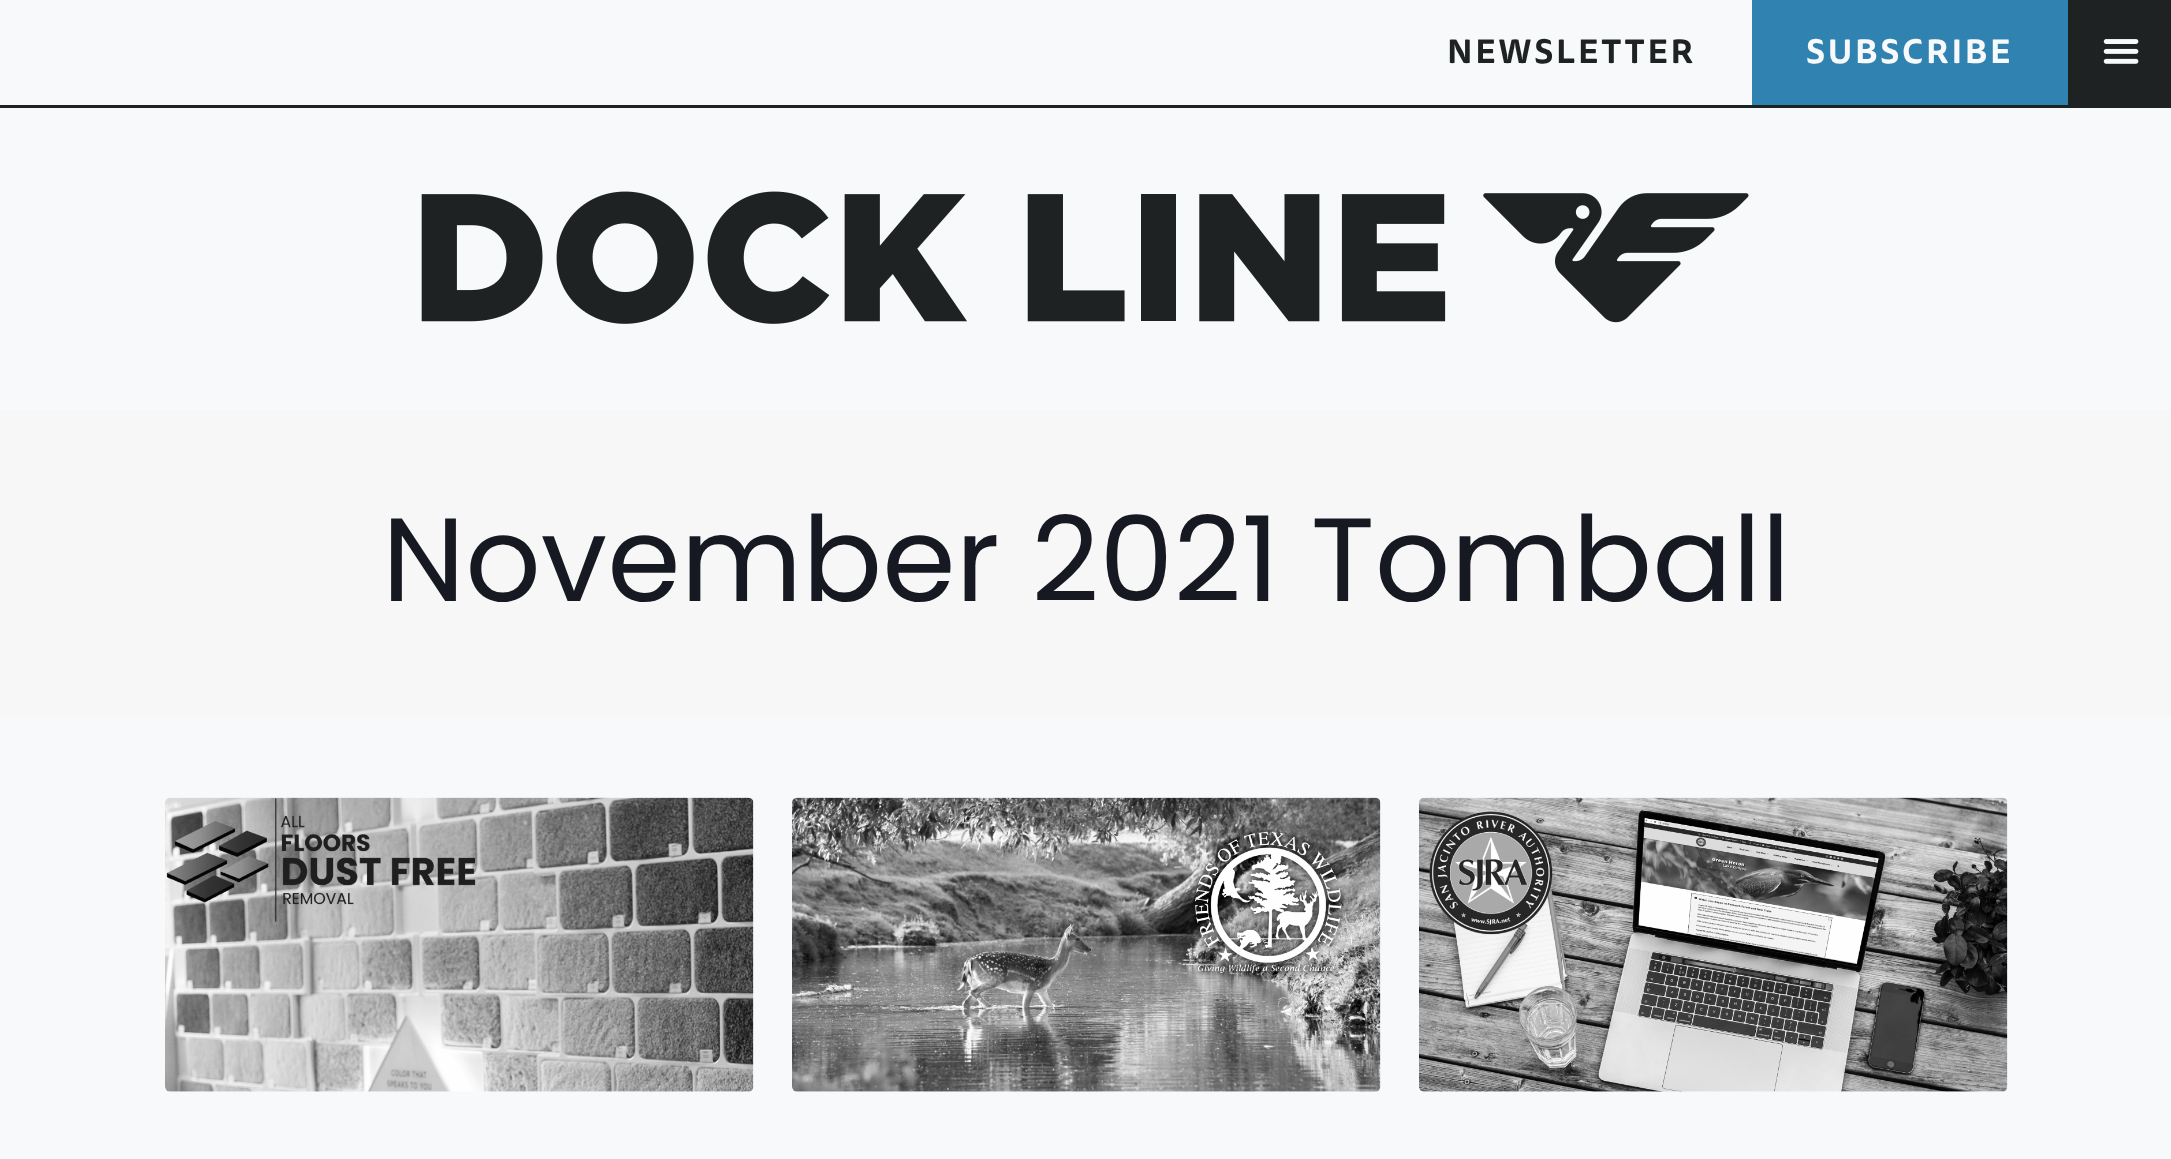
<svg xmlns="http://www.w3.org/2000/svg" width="2171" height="1159">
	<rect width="100%" height="100%" fill="#F7F9FA" />
	<rect x="0" y="105" width="2171" height="3" fill="#1F2223" />
	<text x="1447" y="63" font-family="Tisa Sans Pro" font-size="33" font-weight="700" letter-spacing="2.75" fill="#1F2223">NEWSLETTER</text>
	<rect x="1752" y="0" width="316" height="105" fill="#3082B1" />
	<text x="1806" y="63" font-family="Tisa Sans Pro" font-size="33" font-weight="700" letter-spacing="2.75" fill="#F7F9FA">SUBSCRIBE</text>
	<rect x="2068" y="0" width="103" height="105" fill="#1F2223" />
	<image x="2103" y="39" width="36" height="25" href="assets/img1.png" />
	<image x="421" y="191" width="1328" height="133" href="assets/img2.png" />
	<rect x="0" y="410" width="2171" height="305" fill="#F7F7F7" />
	<text x="382" y="601" font-family="Poppins" font-size="118.25" fill="#161922">November 2021 Tomball</text>
	<image x="165" y="797" width="589" height="295" href="assets/img3.png" />
	<image x="792" y="797" width="589" height="295" href="assets/img4.png" />
	<image x="1419" y="797" width="589" height="295" href="assets/img5.png" />
</svg>
